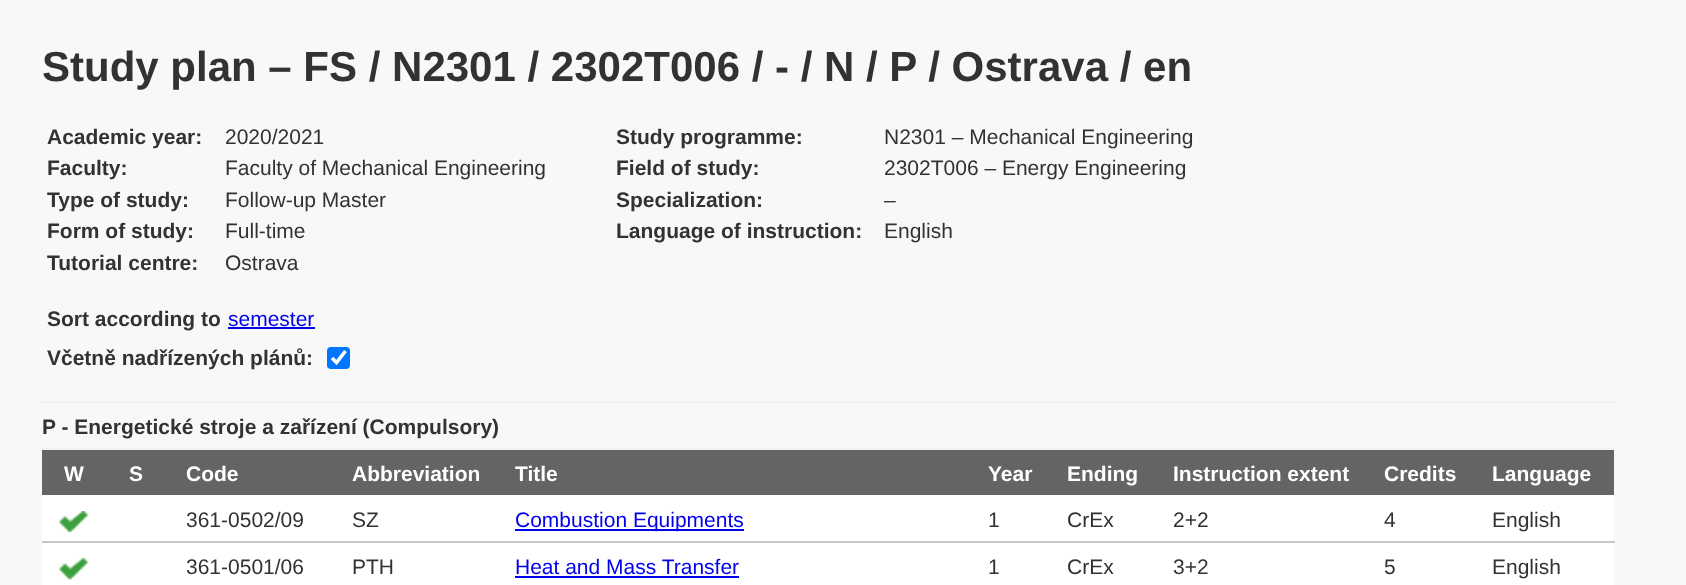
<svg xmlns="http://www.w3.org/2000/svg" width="1686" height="585">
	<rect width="100%" height="100%" fill="#F8F8F8" />
	<text x="42" y="81" font-family="Liberation Sans" font-size="42" font-weight="700" fill="#323232">Study plan – FS / N2301 / 2302T006 / - / N / P / Ostrava / en</text>
	<text x="47" y="144" font-family="Liberation Sans" font-size="21" font-weight="700" fill="#323232">Academic year:</text>
	<text x="225" y="144" font-family="Liberation Sans" font-size="21" fill="#323232">2020/2021</text>
	<text x="616" y="144" font-family="Liberation Sans" font-size="21" font-weight="700" fill="#323232">Study programme:</text>
	<text x="884" y="144" font-family="Liberation Sans" font-size="21" fill="#323232">N2301 – Mechanical Engineering</text>
	<text x="47" y="175" font-family="Liberation Sans" font-size="21" font-weight="700" fill="#323232">Faculty:</text>
	<text x="225" y="175" font-family="Liberation Sans" font-size="21" fill="#323232">Faculty of Mechanical Engineering</text>
	<text x="616" y="175" font-family="Liberation Sans" font-size="21" font-weight="700" fill="#323232">Field of study:</text>
	<text x="884" y="175" font-family="Liberation Sans" font-size="21" fill="#323232">2302T006 – Energy Engineering</text>
	<text x="47" y="207" font-family="Liberation Sans" font-size="21" font-weight="700" fill="#323232">Type of study:</text>
	<text x="225" y="207" font-family="Liberation Sans" font-size="21" fill="#323232">Follow-up Master</text>
	<text x="616" y="207" font-family="Liberation Sans" font-size="21" font-weight="700" fill="#323232">Specialization:</text>
	<text x="884" y="207" font-family="Liberation Sans" font-size="21" fill="#323232">–</text>
	<text x="47" y="238" font-family="Liberation Sans" font-size="21" font-weight="700" fill="#323232">Form of study:</text>
	<text x="225" y="238" font-family="Liberation Sans" font-size="21" fill="#323232">Full-time</text>
	<text x="616" y="238" font-family="Liberation Sans" font-size="21" font-weight="700" fill="#323232">Language of instruction:</text>
	<text x="884" y="238" font-family="Liberation Sans" font-size="21" fill="#323232">English</text>
	<text x="47" y="270" font-family="Liberation Sans" font-size="21" font-weight="700" fill="#323232">Tutorial centre:</text>
	<text x="225" y="270" font-family="Liberation Sans" font-size="21" fill="#323232">Ostrava</text>
	<text x="47" y="326" font-family="Liberation Sans" font-size="21" font-weight="700" fill="#323232">Sort according to</text>
	<text x="228" y="326" font-family="Liberation Sans" font-size="21" fill="#0000EE">semester</text>
	<rect x="228" y="327" width="87" height="2" fill="#0000EE" />
	<text x="47" y="365" font-family="Liberation Sans" font-size="21" font-weight="700" fill="#323232">Včetně nadřízených plánů:</text>
	<rect x="327" y="347" width="23" height="22" rx="4" fill="#0075FF" />
	<path d="M332 358L336.5 362.5L345.5 351" fill="none" stroke="#FFFFFF" stroke-width="3.6" />
	<rect x="42" y="401" width="1573" height="2" fill="#F0F0F0" />
	<text x="42" y="434" font-family="Liberation Sans" font-size="21" font-weight="700" fill="#323232">P - Energetické stroje a zařízení (Compulsory)</text>
	<rect x="42" y="448" width="1573" height="2" fill="#F0F0F0" />
	<rect x="42" y="450" width="1572" height="45" fill="#646464" />
	<g font-family="Liberation Sans" font-size="21" font-weight="700" fill="#FFFFFF">
		<text x="64" y="481">W</text>
		<text x="129" y="481">S</text>
		<text x="186" y="481">Code</text>
		<text x="352" y="481">Abbreviation</text>
		<text x="515" y="481">Title</text>
		<text x="988" y="481">Year</text>
		<text x="1067" y="481">Ending</text>
		<text x="1173" y="481">Instruction extent</text>
		<text x="1384" y="481">Credits</text>
		<text x="1492" y="481">Language</text>
	</g>
	<rect x="42" y="495" width="1572" height="46" fill="#FFFFFF" />
	<image x="59" y="511" width="29" height="21" href="assets/img1.png" />
	<g font-family="Liberation Sans" font-size="21" fill="#323232">
		<text x="186" y="527">361-0502/09</text>
		<text x="352" y="527">SZ</text>
	</g>
	<rect x="515" y="529" width="229" height="2" fill="#0000EE" />
	<text x="515" y="527" font-family="Liberation Sans" font-size="21" fill="#0000EE">Combustion Equipments</text>
	<g font-family="Liberation Sans" font-size="21" fill="#323232">
		<text x="988" y="527">1</text>
		<text x="1067" y="527">CrEx</text>
		<text x="1173" y="527">2+2</text>
		<text x="1384" y="527">4</text>
	</g>
	<rect x="42" y="541" width="1573" height="2" fill="#C8C8C8" />
	<text x="1492" y="527" font-family="Liberation Sans" font-size="21" fill="#323232">English</text>
	<rect x="42" y="543" width="1572" height="42" fill="#FFFFFF" />
	<image x="59" y="558" width="29" height="22" href="assets/img2.png" />
	<g font-family="Liberation Sans" font-size="21" fill="#323232">
		<text x="186" y="574">361-0501/06</text>
		<text x="352" y="574">PTH</text>
	</g>
	<text x="515" y="574" font-family="Liberation Sans" font-size="21" fill="#0000EE">Heat and Mass Transfer</text>
	<rect x="515" y="576" width="224" height="2" fill="#0000EE" />
	<g font-family="Liberation Sans" font-size="21" fill="#323232">
		<text x="988" y="574">1</text>
		<text x="1067" y="574">CrEx</text>
		<text x="1173" y="574">3+2</text>
		<text x="1384" y="574">5</text>
		<text x="1492" y="574">English</text>
	</g>
</svg>
